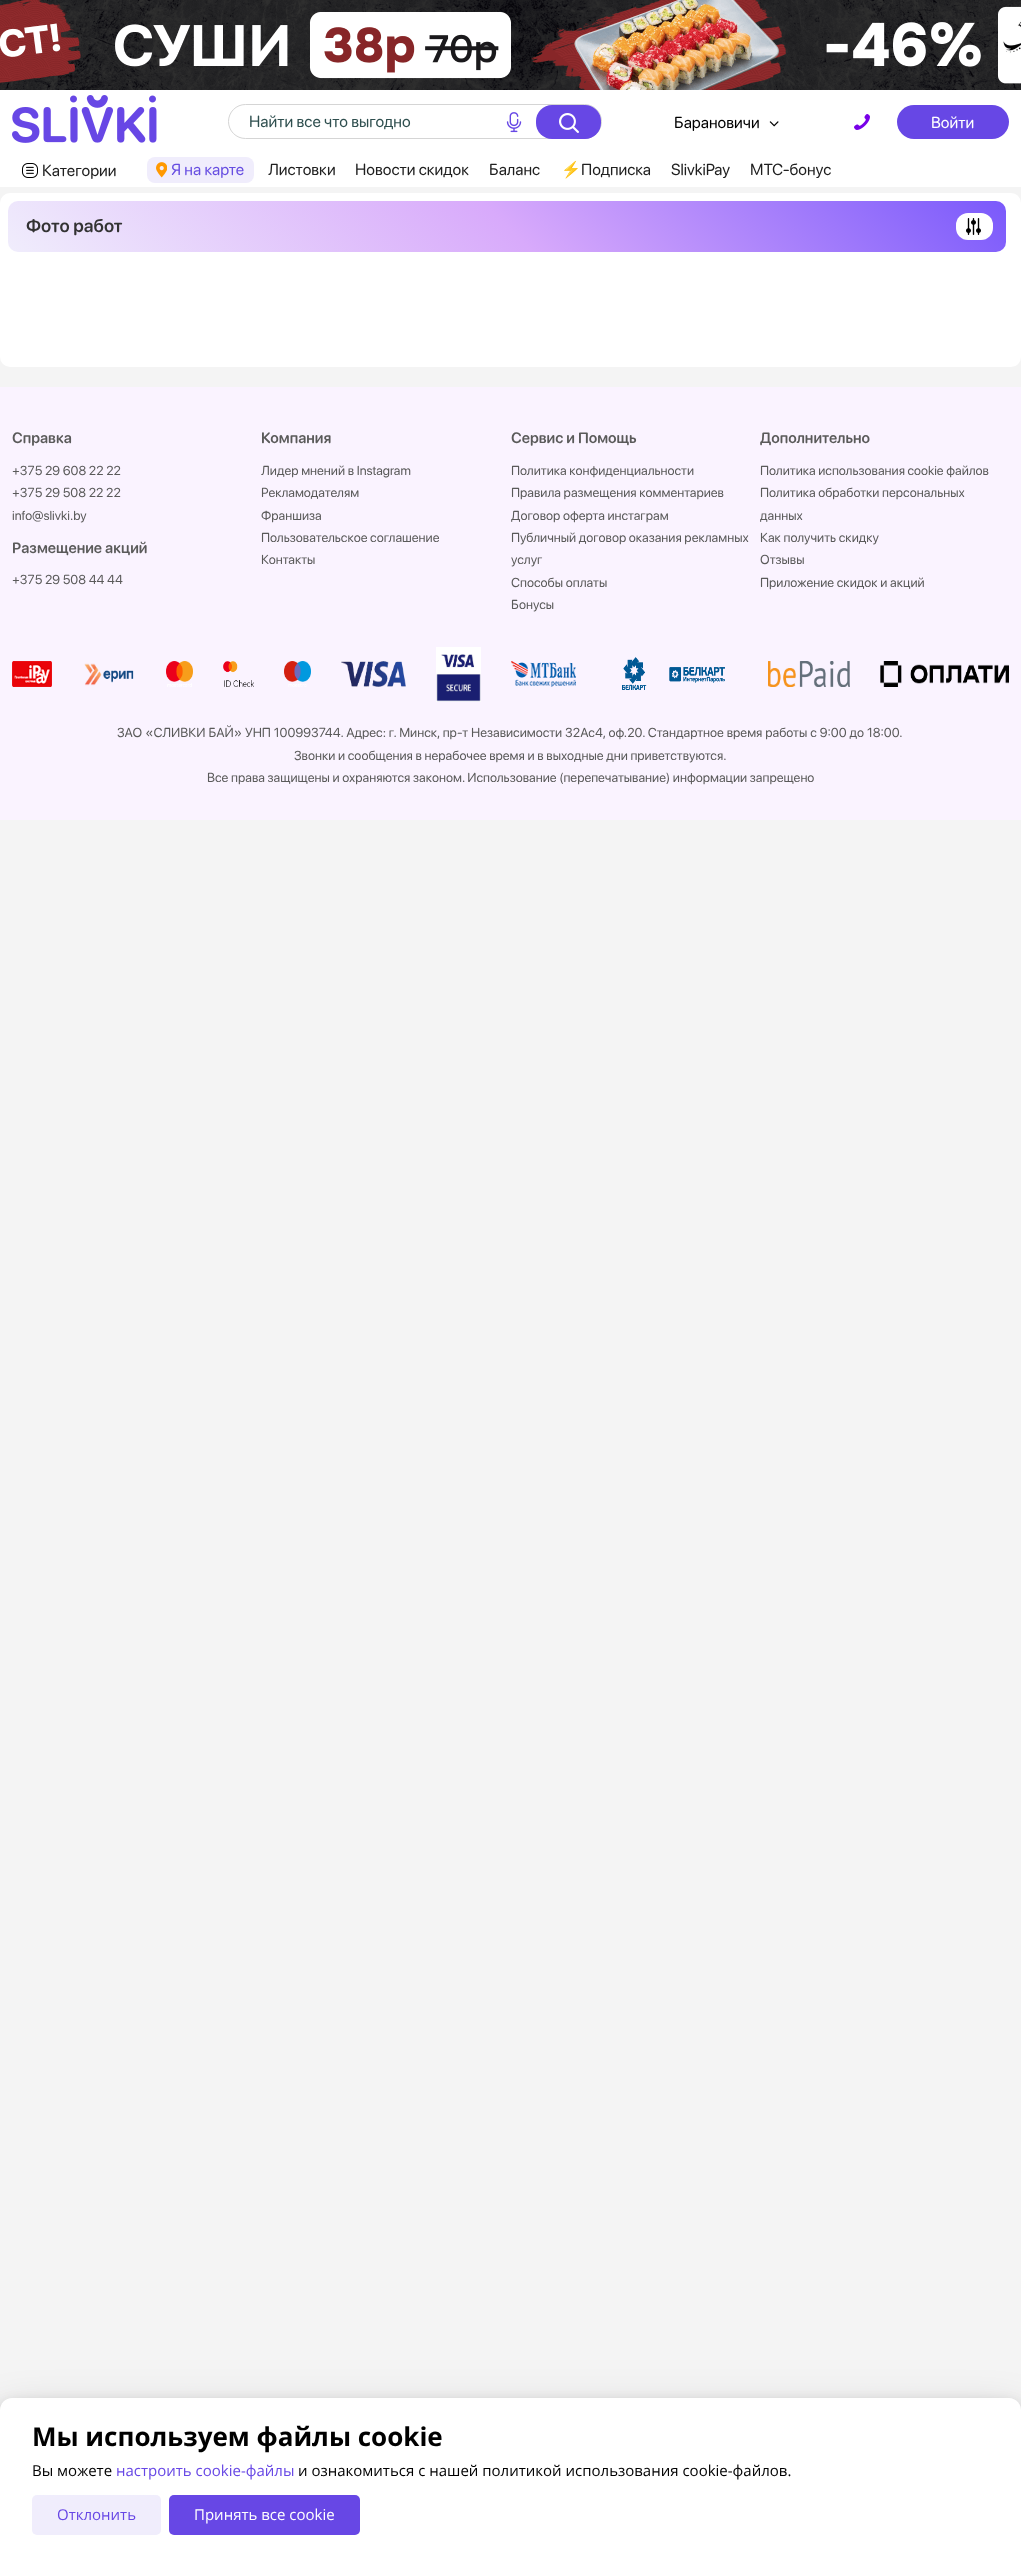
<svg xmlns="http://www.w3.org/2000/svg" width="1021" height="2567">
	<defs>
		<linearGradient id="g1" gradientUnits="userSpaceOnUse" x1="245" y1="489" x2="769" y2="-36"><stop offset="0" stop-color="#F0EDFC" /><stop offset="0.5" stop-color="#D8AAFB" /><stop offset="1" stop-color="#7A59FB" /></linearGradient>
	</defs>
	<rect width="100%" height="100%" fill="#F4F4F4" />
	<image x="0" y="0" width="1021" height="90" href="assets/img1.png" />
	<rect x="0" y="90" width="1021" height="97" fill="#FFFFFF" />
	<image x="12" y="95" width="145" height="48" href="assets/img2.png" />
	<rect x="228.5" y="104.5" width="373" height="34" rx="17" fill="none" stroke="#D5D5D5" />
	<text x="249" y="127" font-family="'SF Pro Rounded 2'" font-size="16" font-weight="200" fill="#2F4F4F">Найти все что выгодно</text>
	<image x="506" y="112" width="16" height="21" href="assets/img3.png" />
	<rect x="536" y="105" width="65" height="34" rx="16" fill="#6747E5" />
	<image x="559" y="113" width="20" height="20" href="assets/img4.png" />
	<text x="674" y="128" font-family="'SF Pro Rounded 2'" font-size="16" font-weight="200" fill="#000000">Барановичи</text>
	<image x="769" y="121" width="10" height="6" href="assets/img5.png" />
	<image x="854" y="114" width="16" height="16" href="assets/img6.png" />
	<rect x="897" y="105" width="112" height="34" rx="17" fill="#6747E5" />
	<text x="931" y="128" font-family="'SF Pro Rounded 2'" font-size="16" font-weight="200" fill="#FFFFFF">Войти</text>
	<image x="22" y="163" width="16" height="15" href="assets/img7.png" />
	<text x="42" y="176" font-family="'SF Pro Rounded 2'" font-size="16" font-weight="200" fill="#202020">Категории</text>
	<rect x="147" y="157" width="107" height="26" rx="8" fill="#F0EDFC" />
	<image x="156" y="162" width="11" height="16" href="assets/img8.png" />
	<text x="171" y="175" font-family="'SF Pro Rounded 2'" font-size="16" font-weight="200" fill="#674EE1">Я на карте</text>
	<g font-family="'SF Pro Rounded 2'" font-size="16" font-weight="200" fill="#202020">
		<text x="268" y="175">Листовки</text>
		<text x="355" y="175">Новости скидок</text>
		<text x="489" y="175">Баланс</text>
	</g>
	<text x="561" y="175" font-family="Noto Color Emoji" font-size="16" fill="#202020">⚡️</text>
	<g font-family="'SF Pro Rounded 2'" font-size="16" font-weight="200" fill="#202020">
		<text x="581" y="175">Подписка</text>
		<text x="671" y="175">SlivkiPay</text>
		<text x="750" y="175">МТС-бонус</text>
	</g>
	<rect x="0" y="193" width="1021" height="174" rx="10" fill="#FFFFFF" />
	<rect x="8" y="201" width="998" height="51" rx="10" fill="url(#g1)" />
	<text x="26" y="232" font-family="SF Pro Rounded" font-size="18" font-weight="200" fill="#333333">Фото работ</text>
	<rect x="956" y="213" width="37" height="27" rx="12" fill="#FFFFFF" />
	<image x="966" y="218" width="15" height="17" href="assets/img9.png" />
	<rect x="0" y="387" width="1021" height="433" fill="#FAF3FF" />
	<text x="12" y="443" font-family="SF Pro Rounded" font-size="15" font-weight="200" fill="#5A5A5A">Справка</text>
	<g font-family="'SF Pro Rounded 2'" font-size="13" font-weight="200" fill="#5A5A5A">
		<text x="12" y="475">+375 29 608 22 22</text>
		<text x="12" y="497">+375 29 508 22 22</text>
		<text x="12" y="520">info@slivki.by</text>
	</g>
	<text x="12" y="553" font-family="SF Pro Rounded" font-size="15" font-weight="200" fill="#5A5A5A">Размещение акций</text>
	<text x="12" y="584" font-family="'SF Pro Rounded 2'" font-size="13" font-weight="200" fill="#5A5A5A">+375 29 508 44 44</text>
	<text x="261" y="443" font-family="SF Pro Rounded" font-size="15" font-weight="200" fill="#5A5A5A">Компания</text>
	<g font-family="'SF Pro Rounded 2'" font-size="13" font-weight="200" fill="#5A5A5A">
		<text x="261" y="475">Лидер мнений в Instagram</text>
		<text x="261" y="497">Рекламодателям</text>
		<text x="261" y="520">Франшиза</text>
		<text x="261" y="542">Пользовательское соглашение</text>
		<text x="261" y="564">Контакты</text>
	</g>
	<text x="511" y="443" font-family="SF Pro Rounded" font-size="15" font-weight="200" fill="#5A5A5A">Сервис и Помощь</text>
	<g font-family="'SF Pro Rounded 2'" font-size="13" font-weight="200" fill="#5A5A5A">
		<text x="511" y="475">Политика конфиденциальности</text>
		<text x="511" y="497">Правила размещения комментариев</text>
		<text x="511" y="520">Договор оферта инстаграм</text>
		<text x="511" y="542">Публичный договор оказания рекламных</text>
		<text x="511" y="564">услуг</text>
		<text x="511" y="587">Способы оплаты</text>
		<text x="511" y="609">Бонусы</text>
	</g>
	<text x="760" y="443" font-family="SF Pro Rounded" font-size="15" font-weight="200" fill="#5A5A5A">Дополнительно</text>
	<g font-family="'SF Pro Rounded 2'" font-size="13" font-weight="200" fill="#5A5A5A">
		<text x="760" y="475">Политика использования cookie файлов</text>
		<text x="760" y="497">Политика обработки персональных</text>
		<text x="760" y="520">данных</text>
		<text x="760" y="542">Как получить скидку</text>
		<text x="760" y="564">Отзывы</text>
		<text x="760" y="587">Приложение скидок и акций</text>
	</g>
	<image x="12" y="661" width="40" height="26" href="assets/img10.png" />
	<image x="84" y="663" width="50" height="23" href="assets/img11.png" />
	<image x="166" y="661" width="27" height="26" href="assets/img12.png" />
	<image x="223" y="661" width="31" height="26" href="assets/img13.png" />
	<image x="284" y="661" width="27" height="26" href="assets/img14.png" />
	<image x="341" y="661" width="65" height="26" href="assets/img15.png" />
	<image x="436" y="647" width="45" height="55" href="assets/img16.png" />
	<image x="511" y="661" width="65" height="26" href="assets/img17.png" />
	<image x="622" y="657" width="103" height="33" href="assets/img18.png" />
	<image x="768" y="661" width="82" height="26" href="assets/img19.png" />
	<image x="880" y="661" width="129" height="26" href="assets/img20.png" />
	<g font-family="'SF Pro Rounded 2'" font-size="13" font-weight="200" fill="#5A5A5A">
		<text x="117" y="737" word-spacing="0.25">ЗАО «СЛИВКИ БАЙ» УНП 100993744. Адрес: г. Минск, пр-т Независимости 32Ас4, оф.20. Стандартное время работы с 9:00 до 18:00.</text>
		<text x="294" y="760">Звонки и сообщения в нерабочее время и в выходные дни приветствуются.</text>
		<text x="207" y="782">Все права защищены и охраняются законом. Использование (перепечатывание) информации запрещено</text>
	</g>
	<rect x="0" y="2402" width="1021" height="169" rx="12" fill="#000000" fill-opacity="0.12" filter="blur(6px)" />
	<rect x="0" y="2422" width="1021" height="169" rx="12" fill="#000000" fill-opacity="0.32" filter="blur(24px)" />
	<path d="M12 2398H1009C1015.5 2398 1021 2403.5 1021 2410V2567H0V2410C0 2403.5 5.5 2398 12 2398Z" fill="#FFFFFF" />
	<text x="32" y="2446" font-family="Open Sans" font-size="26" font-weight="700" fill="#000000">Мы используем файлы cookie</text>
	<text x="32" y="2476" font-family="Open Sans" font-size="15" fill="#000000">Вы можете</text>
	<text x="116" y="2476" font-family="Open Sans" font-size="15" fill="#6747E5">настроить cookie-файлы</text>
	<text x="298" y="2476" font-family="Open Sans" font-size="15" fill="#000000">и ознакомиться с нашей политикой использования cookie-файлов.</text>
	<rect x="32" y="2495" width="129" height="40" rx="5" fill="#F0EDFC" />
	<text x="57" y="2520" font-family="Open Sans" font-size="15" fill="#6747E5">Отклонить</text>
	<rect x="169" y="2495" width="191" height="40" rx="5" fill="#6747E5" />
	<text x="194" y="2520" font-family="Open Sans" font-size="15" fill="#FFFFFF">Принять все cookie</text>
</svg>
